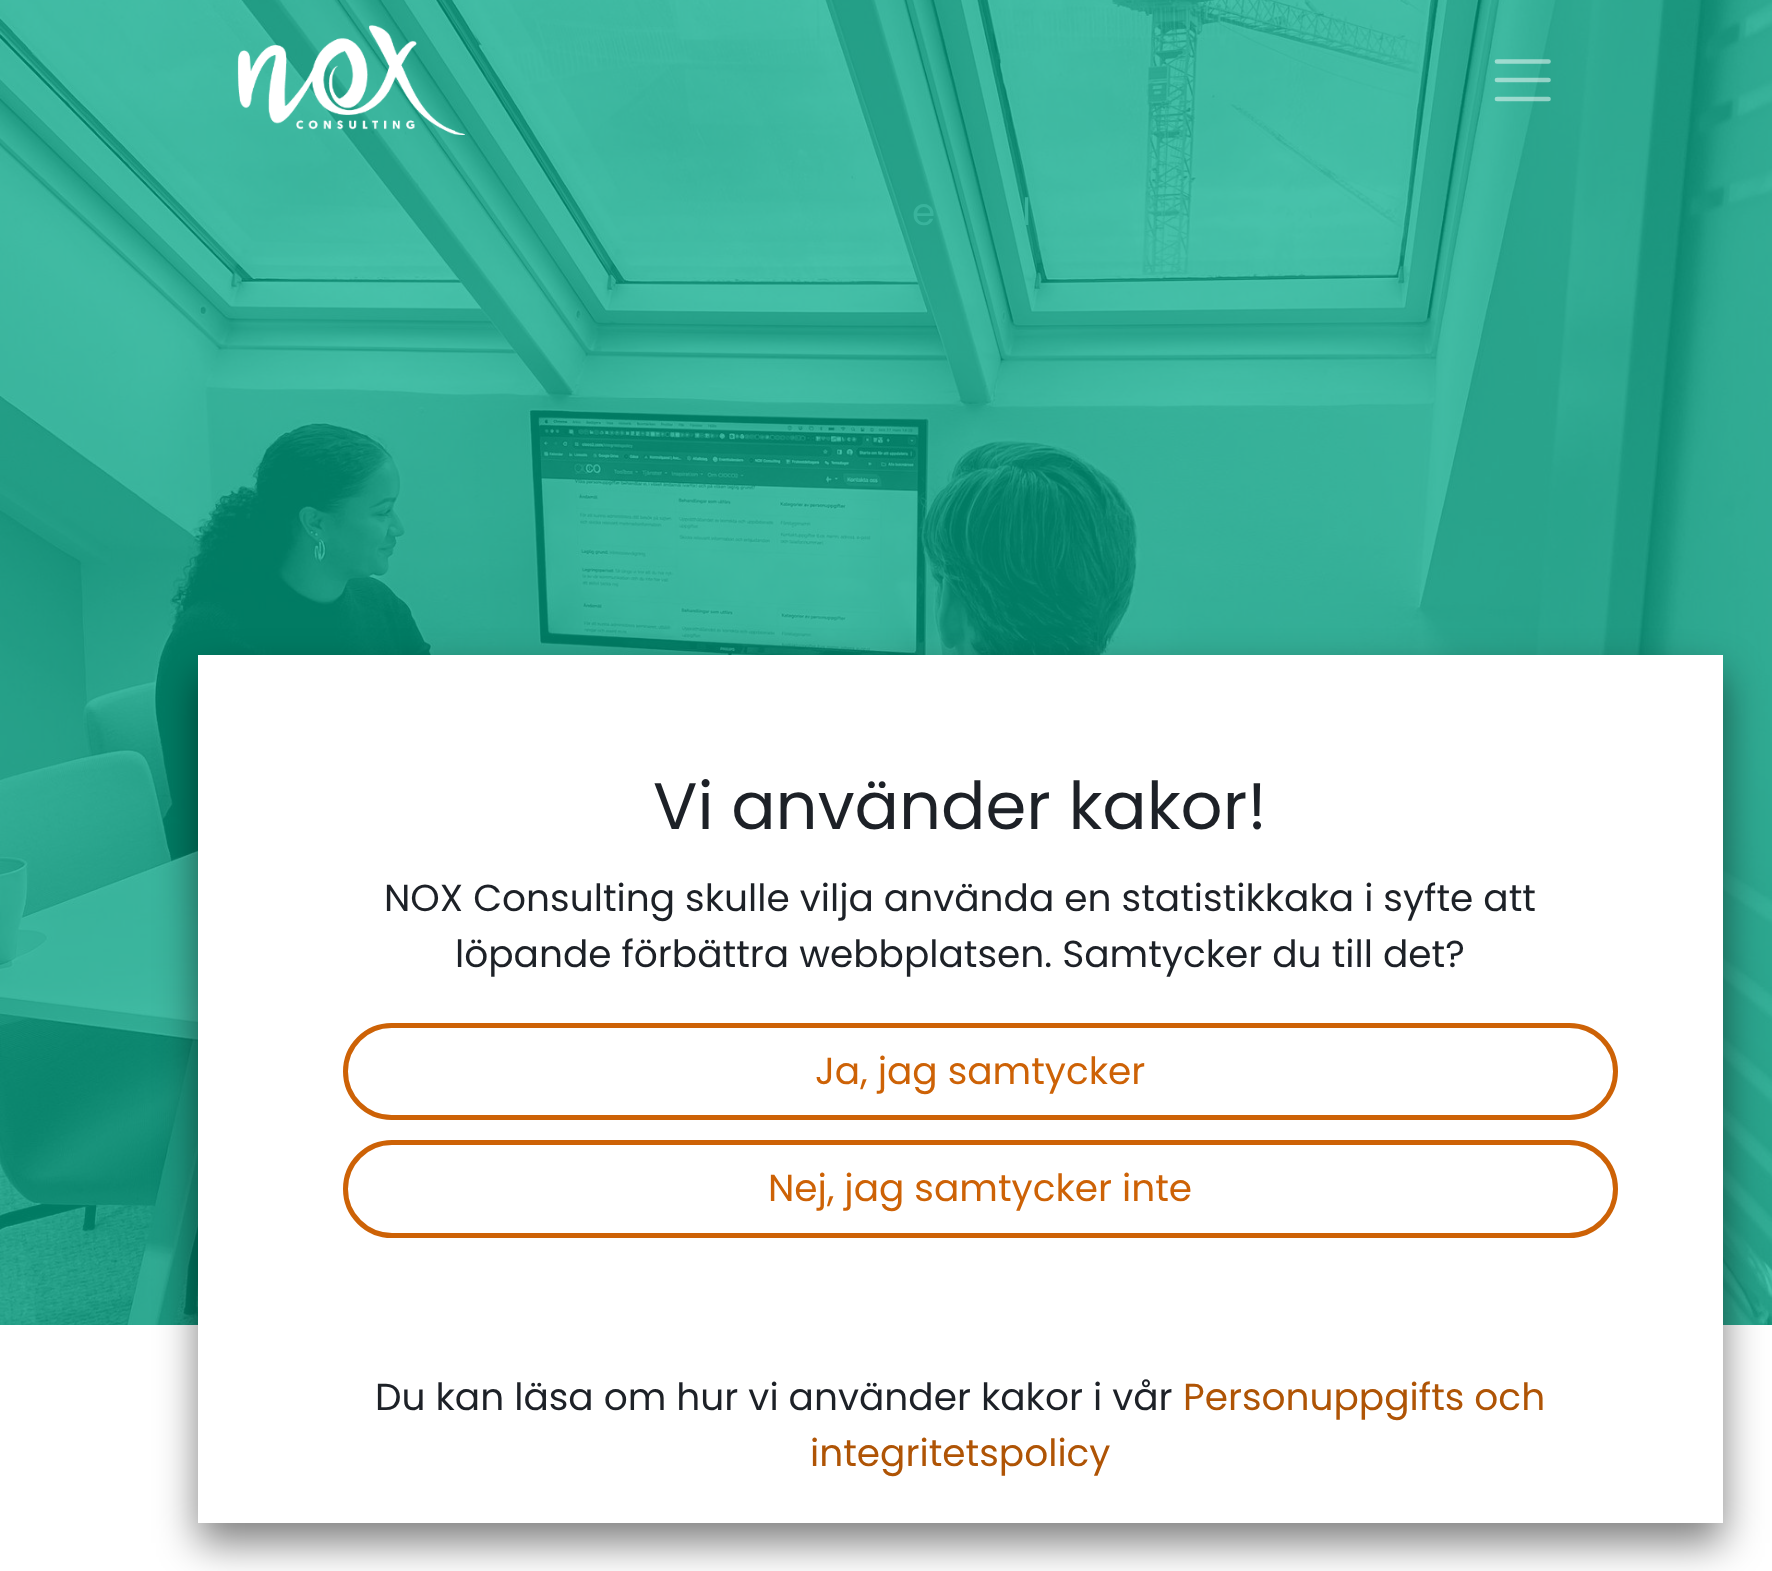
<svg xmlns="http://www.w3.org/2000/svg" width="1772" height="1571">
	<rect width="100%" height="100%" fill="#FFFFFF" />
	<image x="0" y="0" width="1772" height="1325" href="assets/img1.png" />
	<g font-family="Poppins" font-size="37.5" fill="#39B39C">
		<text x="912" y="225">e</text>
		<text x="1022" y="225">l</text>
	</g>
	<image x="237" y="25" width="228" height="110" href="assets/img2.png" />
	<path d="M1497 61.5H1548.5M1497 80H1548.5M1497 99H1548.5" fill="none" stroke="#FFFFFF" stroke-opacity="0.5" stroke-width="4.7" stroke-linecap="round" />
	<rect x="198" y="675" width="1525" height="868" fill="#000000" fill-opacity="0.5" filter="blur(20px)" />
	<rect x="198" y="655" width="1525" height="868" fill="#FFFFFF" />
	<text x="653" y="829" font-family="Poppins" font-size="65.75" fill="#1D2127">Vi använder kakor!</text>
	<g font-family="Poppins" font-size="37.5" fill="#1D2127">
		<text x="384" y="911">NOX Consulting skulle vilja använda en statistikkaka i syfte att</text>
		<text x="455" y="967">löpande förbättra webbplatsen. Samtycker du till det?</text>
	</g>
	<rect x="345.5" y="1025.5" width="1270" height="92" rx="46" fill="none" stroke="#CD6206" stroke-width="5" />
	<text x="815" y="1084" font-family="Poppins" font-size="37.5" fill="#CD6206">Ja, jag samtycker</text>
	<rect x="345.5" y="1142.5" width="1270" height="93" rx="46.5" fill="none" stroke="#CD6206" stroke-width="5" />
	<text x="768" y="1201" font-family="Poppins" font-size="37.5" fill="#CD6206">Nej, jag samtycker inte</text>
	<text x="375" y="1410" font-family="Poppins" font-size="37.5" fill="#1D2127">Du kan läsa om hur vi använder kakor i vår</text>
	<g font-family="Poppins" font-size="37.5" fill="#AF5405">
		<text x="1183" y="1410">Personuppgifts och</text>
		<text x="810" y="1466">integritetspolicy</text>
	</g>
</svg>
